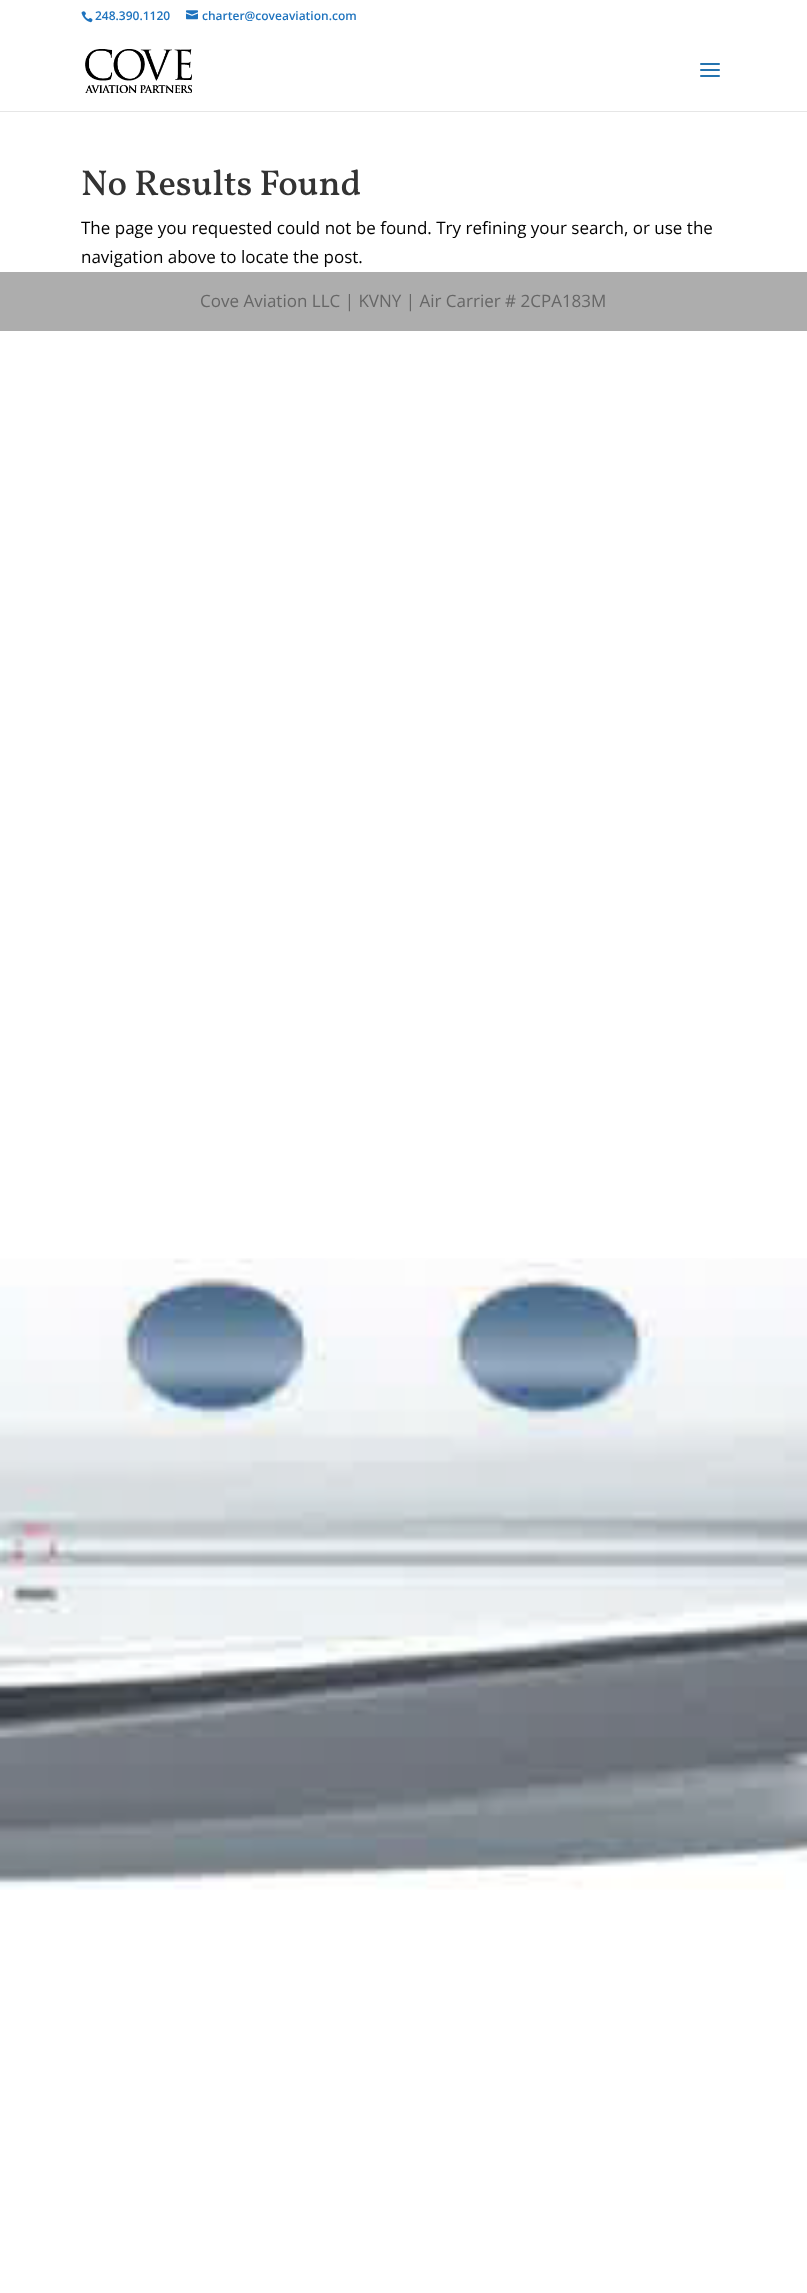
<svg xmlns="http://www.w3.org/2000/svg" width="807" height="2293">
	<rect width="100%" height="100%" fill="#FFFFFF" />
	<image x="0" y="1258" width="807" height="632" href="assets/img1.png" />
	<image x="81" y="11" width="12" height="12" href="assets/img2.png" />
	<text x="95" y="20" font-family="Open Sans" font-size="12" font-weight="600" fill="#1E73BE">248.390.1120</text>
	<image x="186" y="10" width="12" height="10" href="assets/img3.png" />
	<text x="202" y="20" font-family="Open Sans" font-size="12" font-weight="600" fill="#1E73BE">charter@coveaviation.com</text>
	<rect x="0" y="111" width="807" height="1" fill="#E6E6E6" />
	<image x="85" y="49" width="107" height="44" href="assets/img4.png" />
	<image x="700" y="63" width="20" height="14" href="assets/img5.png" />
	<text x="81" y="195" font-family="Vollkorn" font-size="36" font-weight="500" fill="#333333">No Results Found</text>
	<g font-family="Open Sans" font-size="17" fill="#000000">
		<text x="81" y="234">The page you requested could not be found. Try refining your search, or use the</text>
		<text x="81" y="263">navigation above to locate the post.</text>
	</g>
	<rect x="0" y="272" width="807" height="59" fill="#ADADAD" />
	<text x="200" y="307" font-family="Open Sans" font-size="17" fill="#666666">Cove Aviation LLC | KVNY | Air Carrier # 2CPA183M</text>
</svg>
